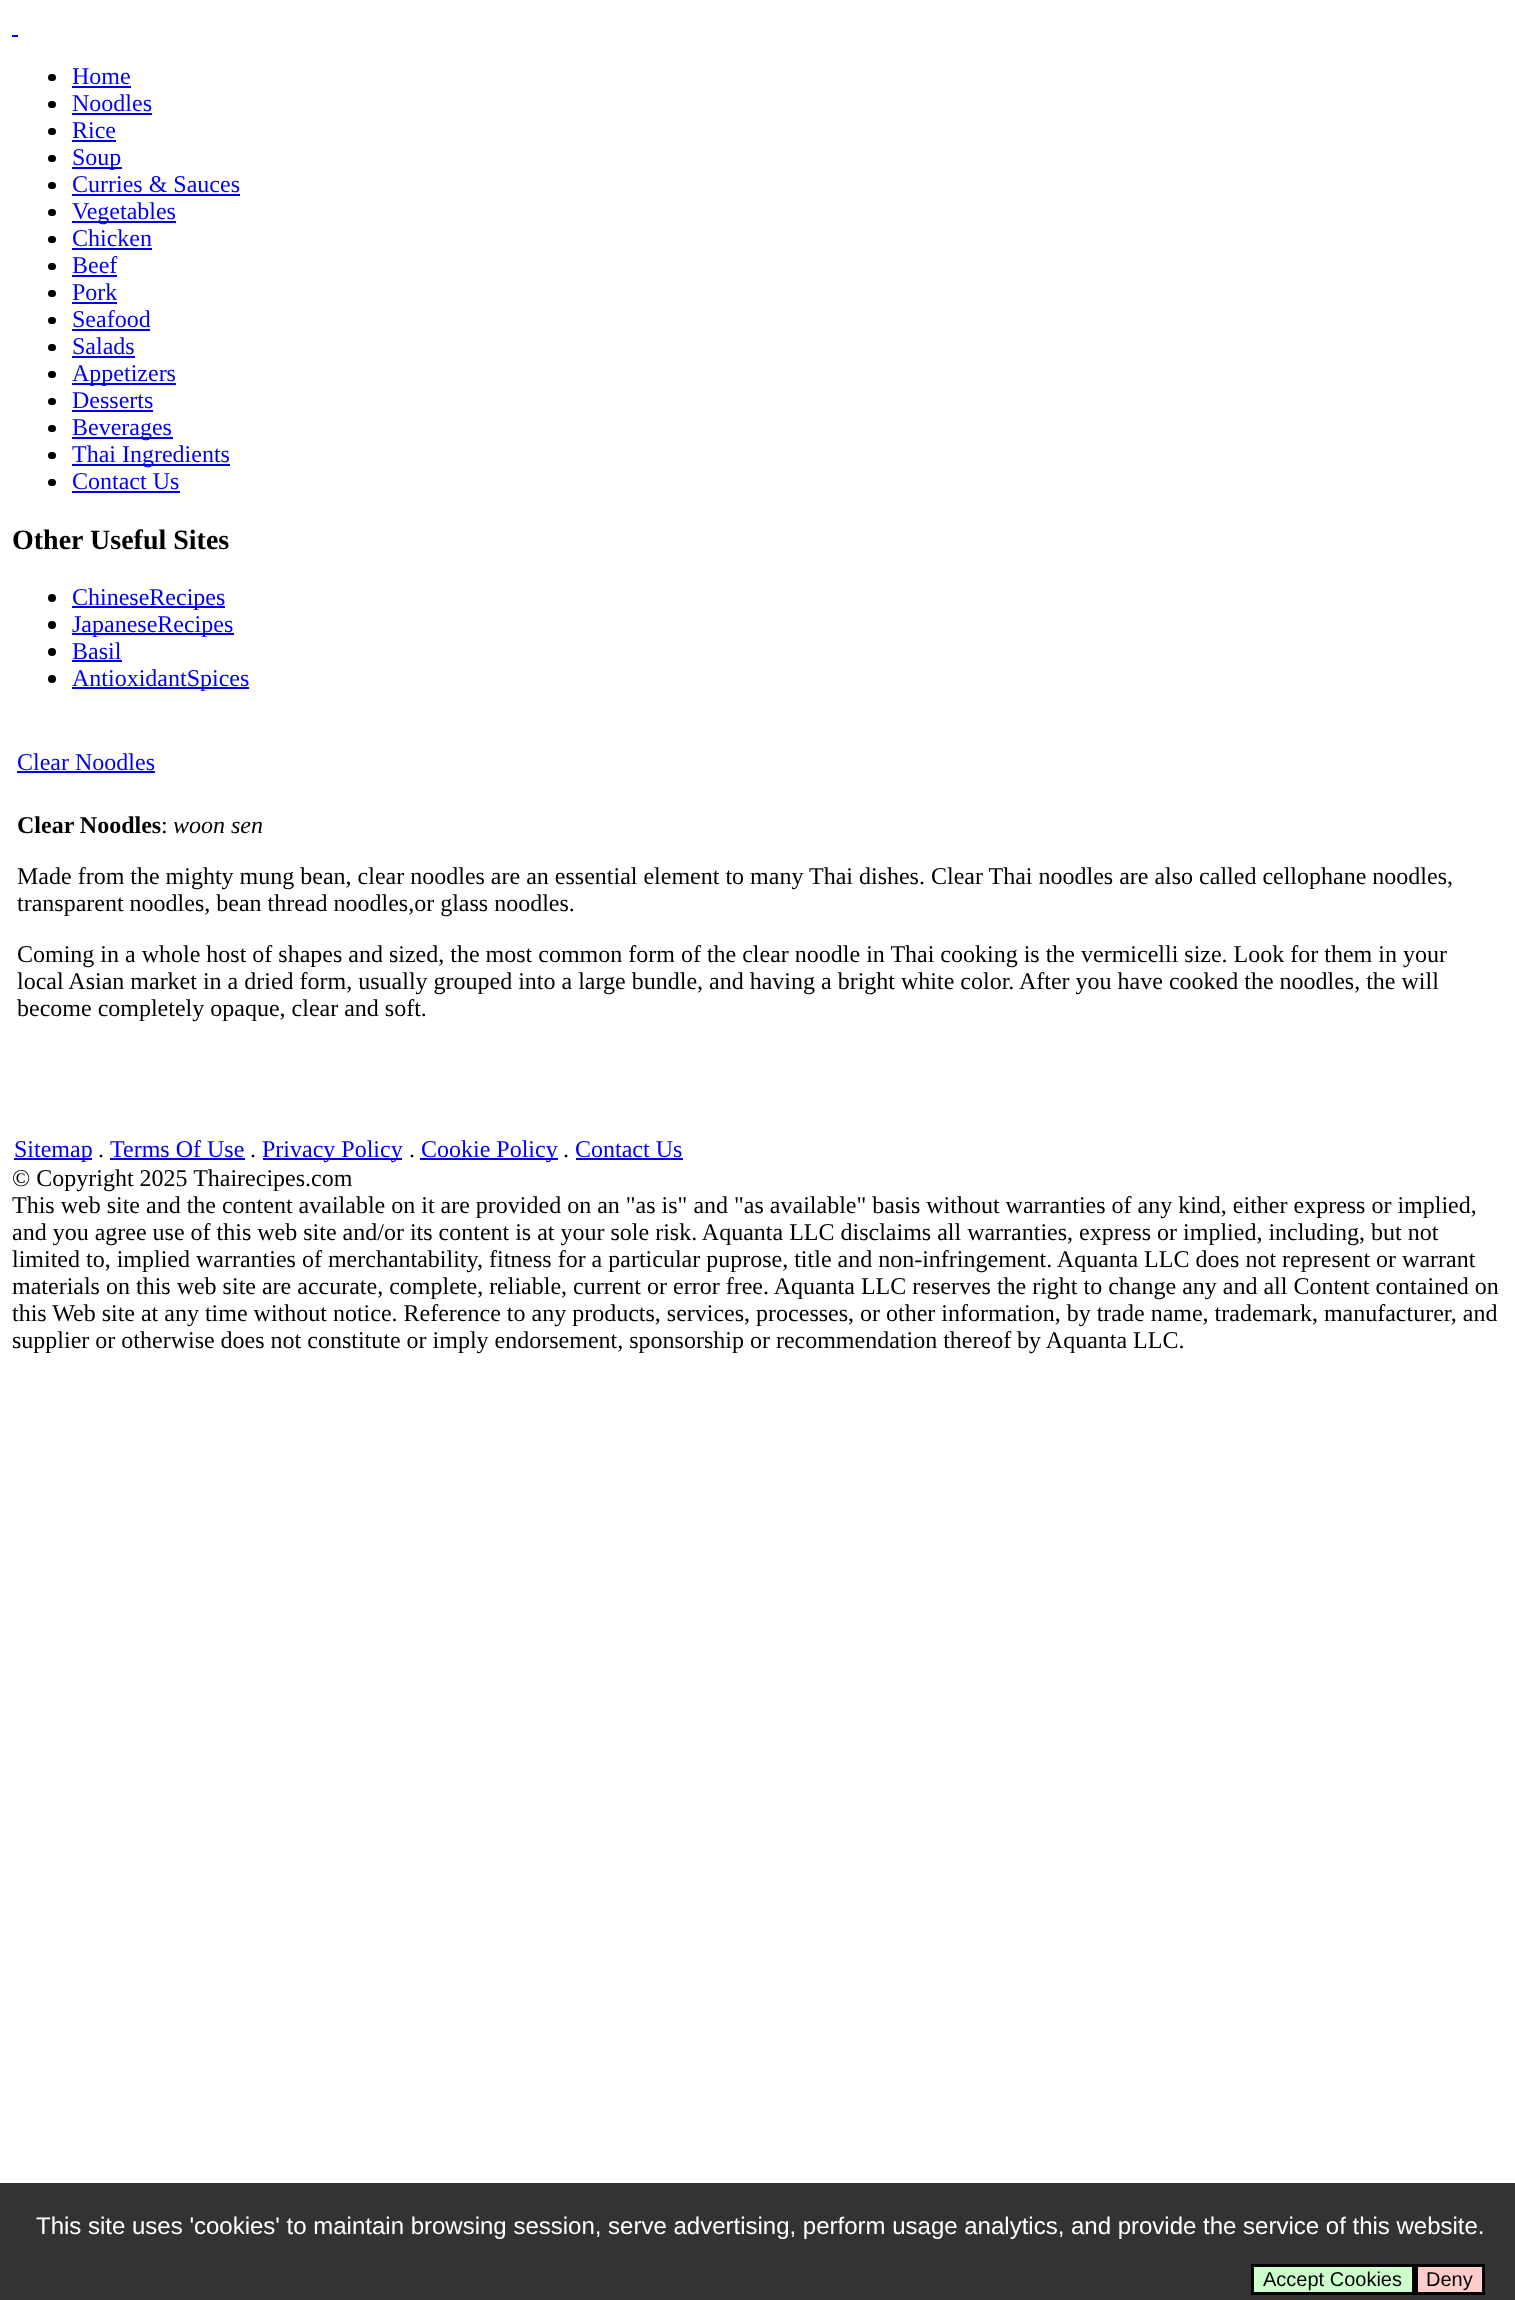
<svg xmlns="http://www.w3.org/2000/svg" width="1515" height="2300">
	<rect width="100%" height="100%" fill="#FFFFFF" />
	<rect x="12" y="35" width="6" height="2" fill="#0000EE" />
	<rect x="48" y="74" width="8" height="7" rx="3.5" fill="#000000" />
	<text x="72" y="84" font-family="Liberation Serif" font-size="24" fill="#0000EE">Home</text>
	<rect x="72" y="86" width="59" height="2" fill="#0000EE" />
	<rect x="48" y="101" width="8" height="7" rx="3.5" fill="#000000" />
	<text x="72" y="111" font-family="Liberation Serif" font-size="24" fill="#0000EE">Noodles</text>
	<rect x="72" y="113" width="80" height="2" fill="#0000EE" />
	<rect x="48" y="128" width="8" height="7" rx="3.5" fill="#000000" />
	<text x="72" y="138" font-family="Liberation Serif" font-size="24" fill="#0000EE">Rice</text>
	<rect x="72" y="140" width="44" height="2" fill="#0000EE" />
	<rect x="48" y="155" width="8" height="7" rx="3.5" fill="#000000" />
	<rect x="72" y="167" width="50" height="2" fill="#0000EE" />
	<text x="72" y="165" font-family="Liberation Serif" font-size="24" fill="#0000EE">Soup</text>
	<rect x="48" y="182" width="8" height="7" rx="3.5" fill="#000000" />
	<text x="72" y="192" font-family="Liberation Serif" font-size="24" fill="#0000EE">Curries &amp; Sauces</text>
	<rect x="72" y="194" width="168" height="2" fill="#0000EE" />
	<rect x="48" y="209" width="8" height="7" rx="3.5" fill="#000000" />
	<rect x="72" y="221" width="104" height="2" fill="#0000EE" />
	<text x="72" y="219" font-family="Liberation Serif" font-size="24" fill="#0000EE">Vegetables</text>
	<rect x="48" y="236" width="8" height="7" rx="3.5" fill="#000000" />
	<text x="72" y="246" font-family="Liberation Serif" font-size="24" fill="#0000EE">Chicken</text>
	<rect x="72" y="248" width="80" height="2" fill="#0000EE" />
	<rect x="48" y="263" width="8" height="7" rx="3.5" fill="#000000" />
	<text x="72" y="273" font-family="Liberation Serif" font-size="24" fill="#0000EE">Beef</text>
	<rect x="72" y="275" width="45" height="2" fill="#0000EE" />
	<rect x="48" y="290" width="8" height="7" rx="3.5" fill="#000000" />
	<text x="72" y="300" font-family="Liberation Serif" font-size="24" fill="#0000EE">Pork</text>
	<rect x="72" y="302" width="45" height="2" fill="#0000EE" />
	<rect x="48" y="317" width="8" height="7" rx="3.5" fill="#000000" />
	<text x="72" y="327" font-family="Liberation Serif" font-size="24" fill="#0000EE">Seafood</text>
	<rect x="72" y="329" width="78" height="2" fill="#0000EE" />
	<rect x="48" y="344" width="8" height="7" rx="3.5" fill="#000000" />
	<text x="72" y="354" font-family="Liberation Serif" font-size="24" fill="#0000EE">Salads</text>
	<rect x="72" y="356" width="63" height="2" fill="#0000EE" />
	<rect x="48" y="371" width="8" height="7" rx="3.5" fill="#000000" />
	<rect x="72" y="383" width="104" height="2" fill="#0000EE" />
	<text x="72" y="381" font-family="Liberation Serif" font-size="24" fill="#0000EE">Appetizers</text>
	<rect x="48" y="398" width="8" height="7" rx="3.5" fill="#000000" />
	<text x="72" y="408" font-family="Liberation Serif" font-size="24" fill="#0000EE">Desserts</text>
	<rect x="72" y="410" width="81" height="2" fill="#0000EE" />
	<rect x="48" y="425" width="8" height="7" rx="3.5" fill="#000000" />
	<rect x="72" y="437" width="101" height="2" fill="#0000EE" />
	<text x="72" y="435" font-family="Liberation Serif" font-size="24" fill="#0000EE">Beverages</text>
	<rect x="48" y="452" width="8" height="7" rx="3.5" fill="#000000" />
	<rect x="72" y="464" width="158" height="2" fill="#0000EE" />
	<text x="72" y="462" font-family="Liberation Serif" font-size="24" fill="#0000EE">Thai Ingredients</text>
	<rect x="48" y="479" width="8" height="7" rx="3.5" fill="#000000" />
	<text x="72" y="489" font-family="Liberation Serif" font-size="24" fill="#0000EE">Contact Us</text>
	<rect x="72" y="491" width="108" height="2" fill="#0000EE" />
	<text x="12" y="549" font-family="Liberation Serif" font-size="28" font-weight="700" fill="#000000">Other Useful Sites</text>
	<circle cx="52" cy="598" r="4" fill="#000000" />
	<rect x="72" y="606" width="153" height="2" fill="#0000EE" />
	<text x="72" y="605" font-family="Liberation Serif" font-size="24" fill="#0000EE">ChineseRecipes</text>
	<circle cx="52" cy="625" r="4" fill="#000000" />
	<rect x="72" y="633" width="162" height="2" fill="#0000EE" />
	<text x="72" y="632" font-family="Liberation Serif" font-size="24" fill="#0000EE">JapaneseRecipes</text>
	<circle cx="52" cy="652" r="4" fill="#000000" />
	<text x="72" y="659" font-family="Liberation Serif" font-size="24" fill="#0000EE">Basil</text>
	<rect x="72" y="660" width="50" height="2" fill="#0000EE" />
	<circle cx="52" cy="679" r="4" fill="#000000" />
	<rect x="72" y="687" width="177" height="2" fill="#0000EE" />
	<g font-family="Liberation Serif" font-size="24" fill="#0000EE">
		<text x="72" y="686">AntioxidantSpices</text>
		<text x="17" y="770">Clear Noodles</text>
	</g>
	<rect x="17" y="771" width="138" height="2" fill="#0000EE" />
	<text x="17" y="833" font-family="Liberation Serif" font-size="24" font-weight="700" fill="#000000">Clear Noodles</text>
	<text x="161" y="833" font-family="Liberation Serif" font-size="24" fill="#000000">:</text>
	<text x="173" y="833" font-family="Liberation Serif" font-size="24" font-style="italic" fill="#000000">woon sen</text>
	<g font-family="Liberation Serif" font-size="24" fill="#000000">
		<text x="17" y="884">Made from the mighty mung bean, clear noodles are an essential element to many Thai dishes. Clear Thai noodles are also called cellophane noodles,</text>
		<text x="17" y="911">transparent noodles, bean thread noodles,or glass noodles.</text>
		<text x="17" y="962">Coming in a whole host of shapes and sized, the most common form of the clear noodle in Thai cooking is the vermicelli size. Look for them in your</text>
		<text x="17" y="989">local Asian market in a dried form, usually grouped into a large bundle, and having a bright white color. After you have cooked the noodles, the will</text>
		<text x="17" y="1016">become completely opaque, clear and soft.</text>
	</g>
	<rect x="14" y="1158" width="78" height="2" fill="#0000EE" />
	<text x="14" y="1157" font-family="Liberation Serif" font-size="24" fill="#0000EE">Sitemap</text>
	<text x="98" y="1157" font-family="Liberation Serif" font-size="24" fill="#000000">.</text>
	<text x="110" y="1157" font-family="Liberation Serif" font-size="24" fill="#0000EE">Terms Of Use</text>
	<rect x="110" y="1158" width="135" height="2" fill="#0000EE" />
	<text x="250" y="1157" font-family="Liberation Serif" font-size="24" fill="#000000">.</text>
	<rect x="263" y="1158" width="139" height="2" fill="#0000EE" />
	<text x="262" y="1157" font-family="Liberation Serif" font-size="24" fill="#0000EE">Privacy Policy</text>
	<text x="409" y="1157" font-family="Liberation Serif" font-size="24" fill="#000000">.</text>
	<rect x="420" y="1158" width="138" height="2" fill="#0000EE" />
	<text x="421" y="1157" font-family="Liberation Serif" font-size="24" fill="#0000EE">Cookie Policy</text>
	<text x="563" y="1157" font-family="Liberation Serif" font-size="24" fill="#000000">.</text>
	<text x="575" y="1157" font-family="Liberation Serif" font-size="24" fill="#0000EE">Contact Us</text>
	<rect x="576" y="1158" width="107" height="2" fill="#0000EE" />
	<g font-family="Liberation Serif" font-size="24" fill="#000000">
		<text x="12" y="1186">© Copyright 2025 Thairecipes.com</text>
		<text x="12" y="1213">This web site and the content available on it are provided on an "as is" and "as available" basis without warranties of any kind, either express or implied,</text>
		<text x="12" y="1240">and you agree use of this web site and/or its content is at your sole risk. Aquanta LLC disclaims all warranties, express or implied, including, but not</text>
		<text x="12" y="1267">limited to, implied warranties of merchantability, fitness for a particular puprose, title and non-infringement. Aquanta LLC does not represent or warrant</text>
		<text x="12" y="1294">materials on this web site are accurate, complete, reliable, current or error free. Aquanta LLC reserves the right to change any and all Content contained on</text>
		<text x="12" y="1321">this Web site at any time without notice. Reference to any products, services, processes, or other information, by trade name, trademark, manufacturer, and</text>
		<text x="12" y="1348">supplier or otherwise does not constitute or imply endorsement, sponsorship or recommendation thereof by Aquanta LLC.</text>
	</g>
	<rect x="0" y="2183" width="1515" height="117" fill="#333333" />
	<text x="36" y="2234" font-family="Liberation Sans" font-size="24" fill="#FFFFFF">This site uses 'cookies' to maintain browsing session, serve advertising, perform usage analytics, and provide the service of this website.</text>
	<rect x="1252.5" y="2265.5" width="161" height="28" fill="#CCFFCC" stroke="#000000" stroke-width="3" />
	<text x="1263" y="2286" font-family="Liberation Sans" font-size="20" fill="#000000">Accept Cookies</text>
	<rect x="1416.5" y="2265.5" width="67" height="28" fill="#FFCCCC" stroke="#000000" stroke-width="3" />
	<text x="1426" y="2286" font-family="Liberation Sans" font-size="20" fill="#000000">Deny</text>
</svg>
